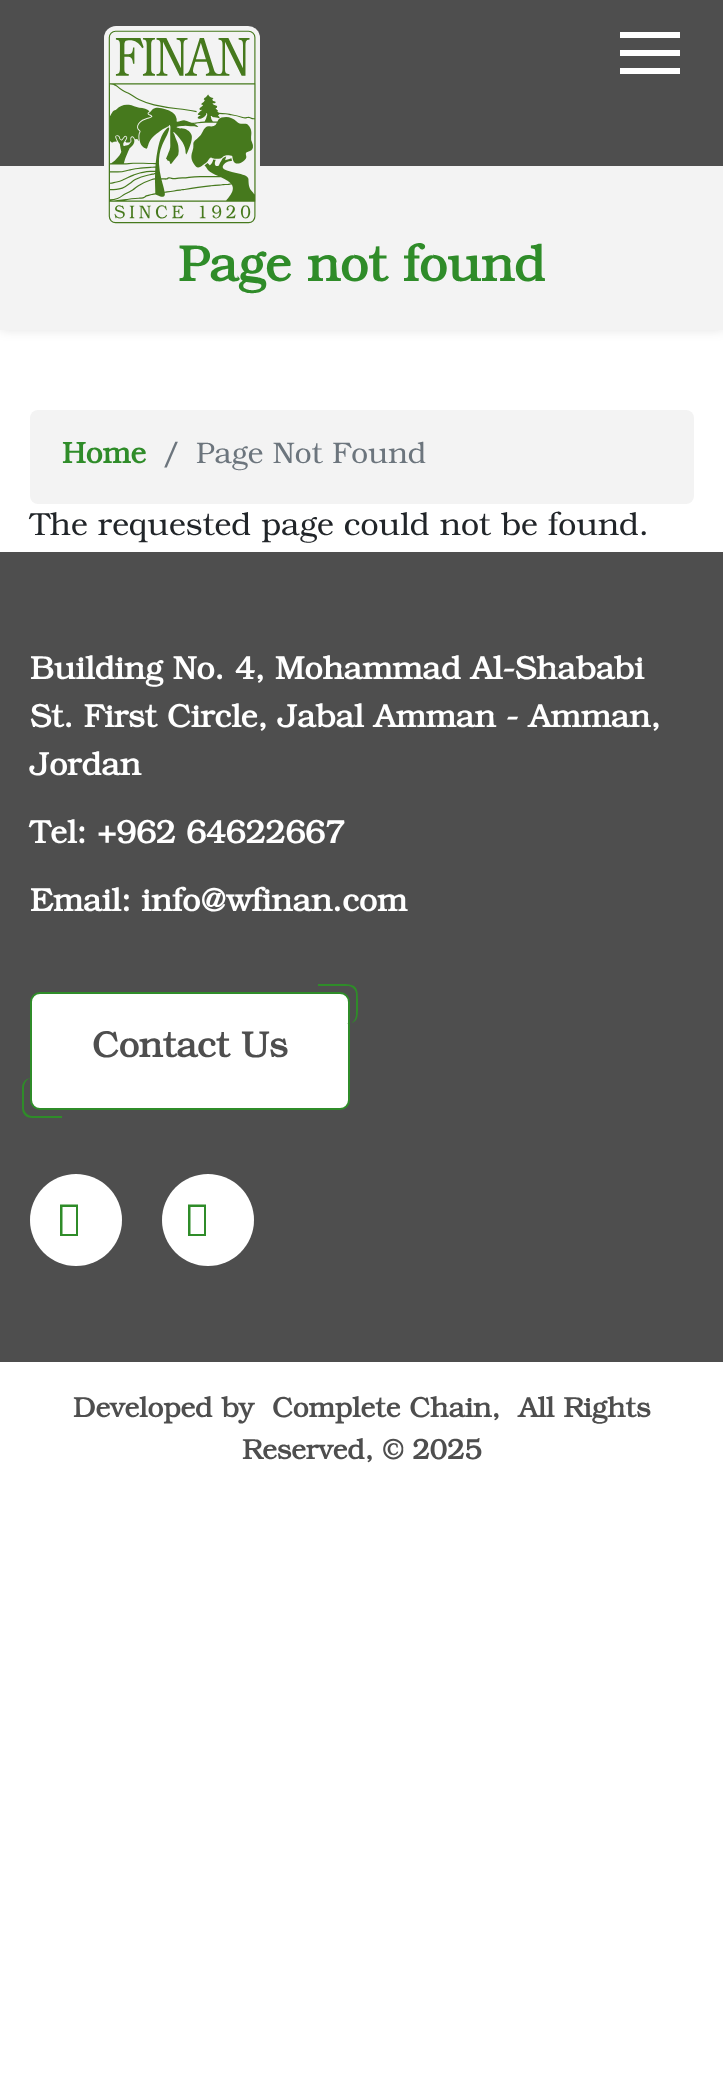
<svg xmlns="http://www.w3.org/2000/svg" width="723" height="2092">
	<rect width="100%" height="100%" fill="#FFFFFF" />
	<rect x="0" y="0" width="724" height="330" fill="#000000" fill-opacity="0.11" filter="blur(6px)" />
	<rect x="0" y="166" width="723" height="164" fill="#F3F3F3" />
	<rect x="0" y="0" width="723" height="166" fill="#4E4E4E" />
	<image x="104" y="26" width="156" height="198" href="assets/img1.png" />
	<rect x="620" y="32" width="60" height="6" fill="#FFFFFF" />
	<rect x="620" y="50" width="60" height="6" fill="#FFFFFF" />
	<rect x="620" y="68" width="60" height="6" fill="#FFFFFF" />
	<text x="178" y="281" font-family="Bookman" font-size="50" font-weight="700" font-style="italic" fill="#2F8C29">Page not found</text>
	<rect x="30" y="410" width="664" height="94" rx="8" fill="#F3F3F3" />
	<text x="62" y="463" font-family="Bookman" font-size="29.75" font-weight="700" font-style="italic" fill="#2F8C29">Home</text>
	<g font-family="Bookman" font-size="29.75" font-style="italic" fill="#6C757D">
		<text x="162" y="463">/</text>
		<text x="196" y="463">Page Not Found</text>
	</g>
	<text x="30" y="535" font-family="Bookman" font-size="32" font-style="italic" fill="#212529">The requested page could not be found.</text>
	<rect x="0" y="552" width="723" height="810" fill="#4E4E4E" />
	<g font-family="Bookman" font-size="32" font-weight="700" font-style="italic" fill="#FFFFFF">
		<text x="30" y="679">Building No. 4, Mohammad Al-Shababi</text>
		<text x="30" y="727">St. First Circle, Jabal Amman - Amman,</text>
		<text x="30" y="775">Jordan</text>
		<text x="30" y="843">Tel: +962 64622667</text>
		<text x="30" y="911">Email: info@wfinan.com</text>
	</g>
	<rect x="31" y="993" width="318" height="116" rx="9" fill="#FFFFFF" stroke="#2F8C29" stroke-width="2" />
	<path d="M318 984H343C359 984 358 990 358 1004C358 1018 359 1024 343 1024H318ZM318 986H348C352 986 356 990 356 994V1014C356 1020 352 1024 348 1024H318Z" fill="#2F8C29" fill-rule="evenodd" />
	<text x="92" y="1057" font-family="Bookman" font-size="36" font-weight="700" font-style="italic" fill="#4E4E4E">Contact Us</text>
	<path d="M32 1078H62V1118H32C26 1118 22 1114 22 1108V1088C22 1082 26 1078 32 1078ZM32 1078H62V1116H32C28 1116 24 1112 24 1108V1088C24 1082 28 1078 32 1078Z" fill="#2F8C29" fill-rule="evenodd" />
	<circle cx="76" cy="1220" r="46" fill="#FFFFFF" />
	<path d="M60 1236V1204.5H78V1236ZM62.5 1234H76V1207H62.5Z" fill="#2F8C29" />
	<circle cx="208" cy="1220" r="46" fill="#FFFFFF" />
	<path d="M188 1236V1204.5H206V1236ZM190.5 1234H204V1207H190.5Z" fill="#2F8C29" />
	<g font-family="Bookman" font-size="28" font-weight="700" font-style="italic" fill="#4E4E4E">
		<text x="73" y="1417">Developed by</text>
		<text x="272" y="1417" xml:space="preserve">Complete Chain,  All Rights</text>
		<text x="242" y="1459">Reserved, © 2025</text>
	</g>
</svg>
